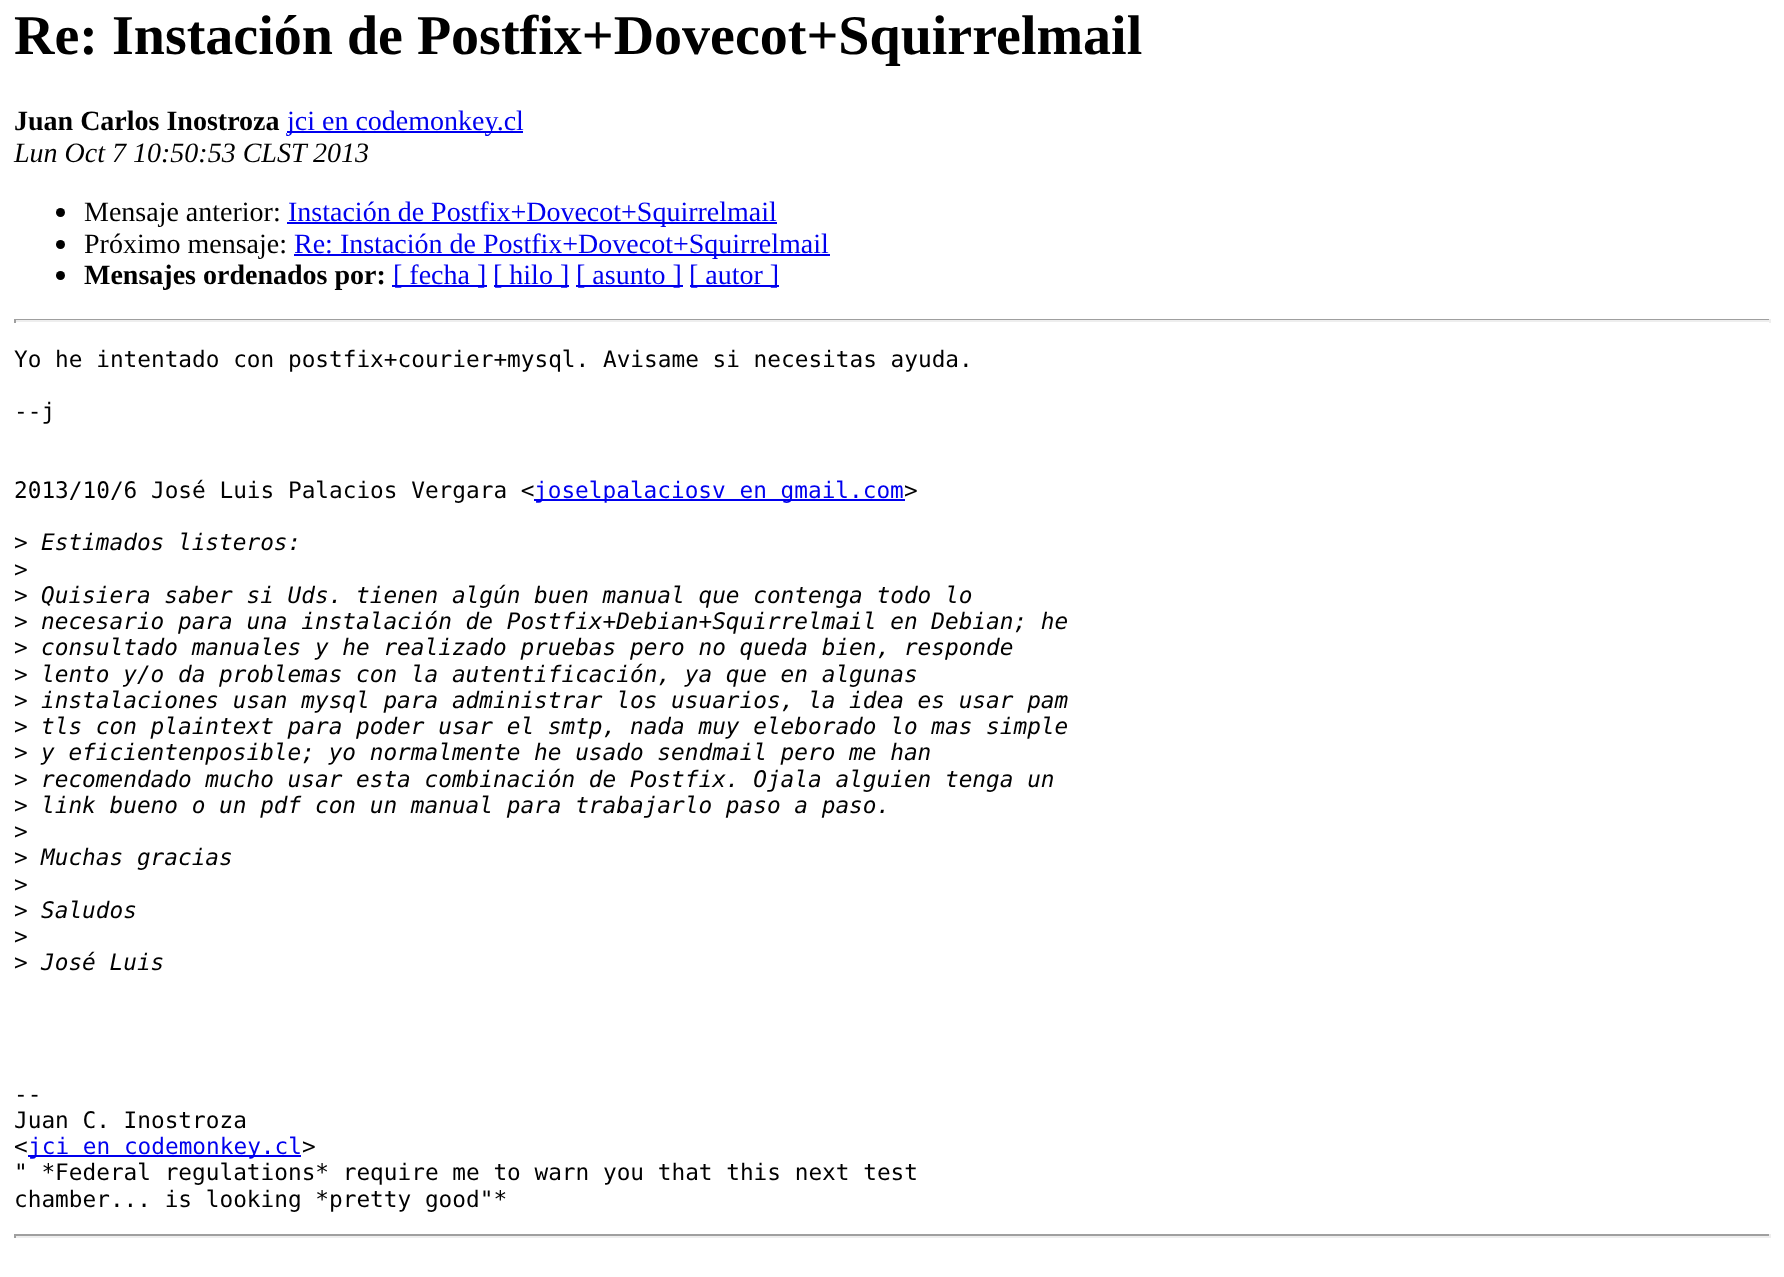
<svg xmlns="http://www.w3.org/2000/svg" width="1784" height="1277">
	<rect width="100%" height="100%" fill="#FFFFFF" />
	<text x="14" y="54" font-family="Liberation Serif" font-size="56" font-weight="700" fill="#000000">Re: Instación de Postfix+Dovecot+Squirrelmail</text>
	<text x="14" y="130" font-family="Liberation Serif" font-size="28" font-weight="700" fill="#000000">Juan Carlos Inostroza</text>
	<rect x="287" y="131" width="236" height="2" fill="#0000EE" />
	<text x="287" y="130" font-family="Liberation Serif" font-size="28" fill="#0000EE">jci en codemonkey.cl</text>
	<text x="14" y="162" font-family="Liberation Serif" font-size="28" font-style="italic" fill="#000000">Lun Oct 7 10:50:53 CLST 2013</text>
	<circle cx="60.5" cy="212.5" r="4.5" fill="#000000" />
	<text x="84" y="221" font-family="Liberation Serif" font-size="28" fill="#000000">Mensaje anterior:</text>
	<rect x="287" y="222" width="490" height="2" fill="#0000EE" />
	<text x="288" y="221" font-family="Liberation Serif" font-size="28" fill="#0000EE">Instación de Postfix+Dovecot+Squirrelmail</text>
	<circle cx="60.5" cy="244.5" r="4.5" fill="#000000" />
	<text x="84" y="253" font-family="Liberation Serif" font-size="28" fill="#000000">Próximo mensaje:</text>
	<rect x="294" y="254" width="536" height="2" fill="#0000EE" />
	<text x="294" y="253" font-family="Liberation Serif" font-size="28" fill="#0000EE">Re: Instación de Postfix+Dovecot+Squirrelmail</text>
	<circle cx="60.5" cy="275.5" r="4.5" fill="#000000" />
	<text x="84" y="284" font-family="Liberation Serif" font-size="28" font-weight="700" fill="#000000">Mensajes ordenados por:</text>
	<rect x="392" y="285" width="95" height="2" fill="#0000EE" />
	<text x="393" y="284" font-family="Liberation Serif" font-size="28" fill="#0000EE">[ fecha ]</text>
	<rect x="494" y="285" width="75" height="2" fill="#0000EE" />
	<text x="493" y="284" font-family="Liberation Serif" font-size="28" fill="#0000EE">[ hilo ]</text>
	<rect x="576" y="285" width="107" height="2" fill="#0000EE" />
	<text x="576" y="284" font-family="Liberation Serif" font-size="28" fill="#0000EE">[ asunto ]</text>
	<rect x="690" y="285" width="89" height="2" fill="#0000EE" />
	<text x="689" y="284" font-family="Liberation Serif" font-size="28" fill="#0000EE">[ autor ]</text>
	<rect x="14" y="319" width="1757" height="1" fill="#9F9F9F" />
	<rect x="1769" y="319" width="2" height="4" fill="#EEEEEE" />
	<rect x="14" y="320" width="1757" height="2" fill="#EEEEEE" />
	<rect x="14" y="319" width="2" height="4" fill="#9F9F9F" />
	<g font-family="DejaVu Sans Mono" font-size="22.75" fill="#000000">
		<text x="14" y="367">Yo he intentado con postfix+courier+mysql. Avisame si necesitas ayuda.</text>
		<text x="14" y="419">--j</text>
		<text x="14" y="498">2013/10/6 José Luis Palacios Vergara &lt;</text>
	</g>
	<rect x="534" y="499" width="371" height="2" fill="#0000EE" />
	<text x="534" y="498" font-family="DejaVu Sans Mono" font-size="22.75" fill="#0000EE">joselpalaciosv en gmail.com</text>
	<g font-family="DejaVu Sans Mono" font-size="22.75" fill="#000000">
		<text x="904" y="498">&gt;</text>
		<text x="14" y="550">&gt;</text>
	</g>
	<text x="41" y="550" font-family="DejaVu Sans Mono" font-size="22.75" font-style="italic" fill="#000000">Estimados listeros:</text>
	<g font-family="DejaVu Sans Mono" font-size="22.75" fill="#000000">
		<text x="14" y="577">&gt;</text>
		<text x="14" y="603">&gt;</text>
	</g>
	<text x="41" y="603" font-family="DejaVu Sans Mono" font-size="22.75" font-style="italic" fill="#000000">Quisiera saber si Uds. tienen algún buen manual que contenga todo lo</text>
	<text x="14" y="629" font-family="DejaVu Sans Mono" font-size="22.75" fill="#000000">&gt;</text>
	<text x="41" y="629" font-family="DejaVu Sans Mono" font-size="22.75" font-style="italic" fill="#000000">necesario para una instalación de Postfix+Debian+Squirrelmail en Debian; he</text>
	<text x="14" y="655" font-family="DejaVu Sans Mono" font-size="22.75" fill="#000000">&gt;</text>
	<text x="41" y="655" font-family="DejaVu Sans Mono" font-size="22.75" font-style="italic" fill="#000000">consultado manuales y he realizado pruebas pero no queda bien, responde</text>
	<text x="14" y="682" font-family="DejaVu Sans Mono" font-size="22.75" fill="#000000">&gt;</text>
	<text x="41" y="682" font-family="DejaVu Sans Mono" font-size="22.75" font-style="italic" fill="#000000">lento y/o da problemas con la autentificación, ya que en algunas</text>
	<text x="14" y="708" font-family="DejaVu Sans Mono" font-size="22.75" fill="#000000">&gt;</text>
	<text x="41" y="708" font-family="DejaVu Sans Mono" font-size="22.75" font-style="italic" fill="#000000">instalaciones usan mysql para administrar los usuarios, la idea es usar pam</text>
	<text x="14" y="734" font-family="DejaVu Sans Mono" font-size="22.75" fill="#000000">&gt;</text>
	<text x="41" y="734" font-family="DejaVu Sans Mono" font-size="22.75" font-style="italic" fill="#000000">tls con plaintext para poder usar el smtp, nada muy eleborado lo mas simple</text>
	<text x="14" y="760" font-family="DejaVu Sans Mono" font-size="22.75" fill="#000000">&gt;</text>
	<text x="41" y="760" font-family="DejaVu Sans Mono" font-size="22.75" font-style="italic" fill="#000000">y eficientenposible; yo normalmente he usado sendmail pero me han</text>
	<text x="14" y="787" font-family="DejaVu Sans Mono" font-size="22.75" fill="#000000">&gt;</text>
	<text x="41" y="787" font-family="DejaVu Sans Mono" font-size="22.75" font-style="italic" fill="#000000">recomendado mucho usar esta combinación de Postfix. Ojala alguien tenga un</text>
	<text x="14" y="813" font-family="DejaVu Sans Mono" font-size="22.75" fill="#000000">&gt;</text>
	<text x="41" y="813" font-family="DejaVu Sans Mono" font-size="22.75" font-style="italic" fill="#000000">link bueno o un pdf con un manual para trabajarlo paso a paso.</text>
	<g font-family="DejaVu Sans Mono" font-size="22.75" fill="#000000">
		<text x="14" y="839">&gt;</text>
		<text x="14" y="865">&gt;</text>
	</g>
	<text x="41" y="865" font-family="DejaVu Sans Mono" font-size="22.75" font-style="italic" fill="#000000">Muchas gracias</text>
	<g font-family="DejaVu Sans Mono" font-size="22.75" fill="#000000">
		<text x="14" y="892">&gt;</text>
		<text x="14" y="918">&gt;</text>
	</g>
	<text x="41" y="918" font-family="DejaVu Sans Mono" font-size="22.75" font-style="italic" fill="#000000">Saludos</text>
	<g font-family="DejaVu Sans Mono" font-size="22.75" fill="#000000">
		<text x="14" y="944">&gt;</text>
		<text x="14" y="970">&gt;</text>
	</g>
	<text x="41" y="970" font-family="DejaVu Sans Mono" font-size="22.75" font-style="italic" fill="#000000">José Luis</text>
	<g font-family="DejaVu Sans Mono" font-size="22.75" fill="#000000">
		<text x="14" y="1102">--</text>
		<text x="14" y="1128">Juan C. Inostroza</text>
		<text x="14" y="1154">&lt;</text>
	</g>
	<rect x="28" y="1155" width="273" height="2" fill="#0000EE" />
	<text x="28" y="1154" font-family="DejaVu Sans Mono" font-size="22.75" fill="#0000EE">jci en codemonkey.cl</text>
	<g font-family="DejaVu Sans Mono" font-size="22.75" fill="#000000">
		<text x="302" y="1154">&gt;</text>
		<text x="14" y="1180">" *Federal regulations* require me to warn you that this next test</text>
		<text x="14" y="1207">chamber... is looking *pretty good"*</text>
	</g>
	<rect x="14" y="1234" width="1757" height="2" fill="#9F9F9F" />
	<rect x="1769" y="1234" width="2" height="4" fill="#EEEEEE" />
	<rect x="14" y="1236" width="1757" height="2" fill="#EEEEEE" />
	<rect x="14" y="1234" width="2" height="4" fill="#9F9F9F" />
</svg>
